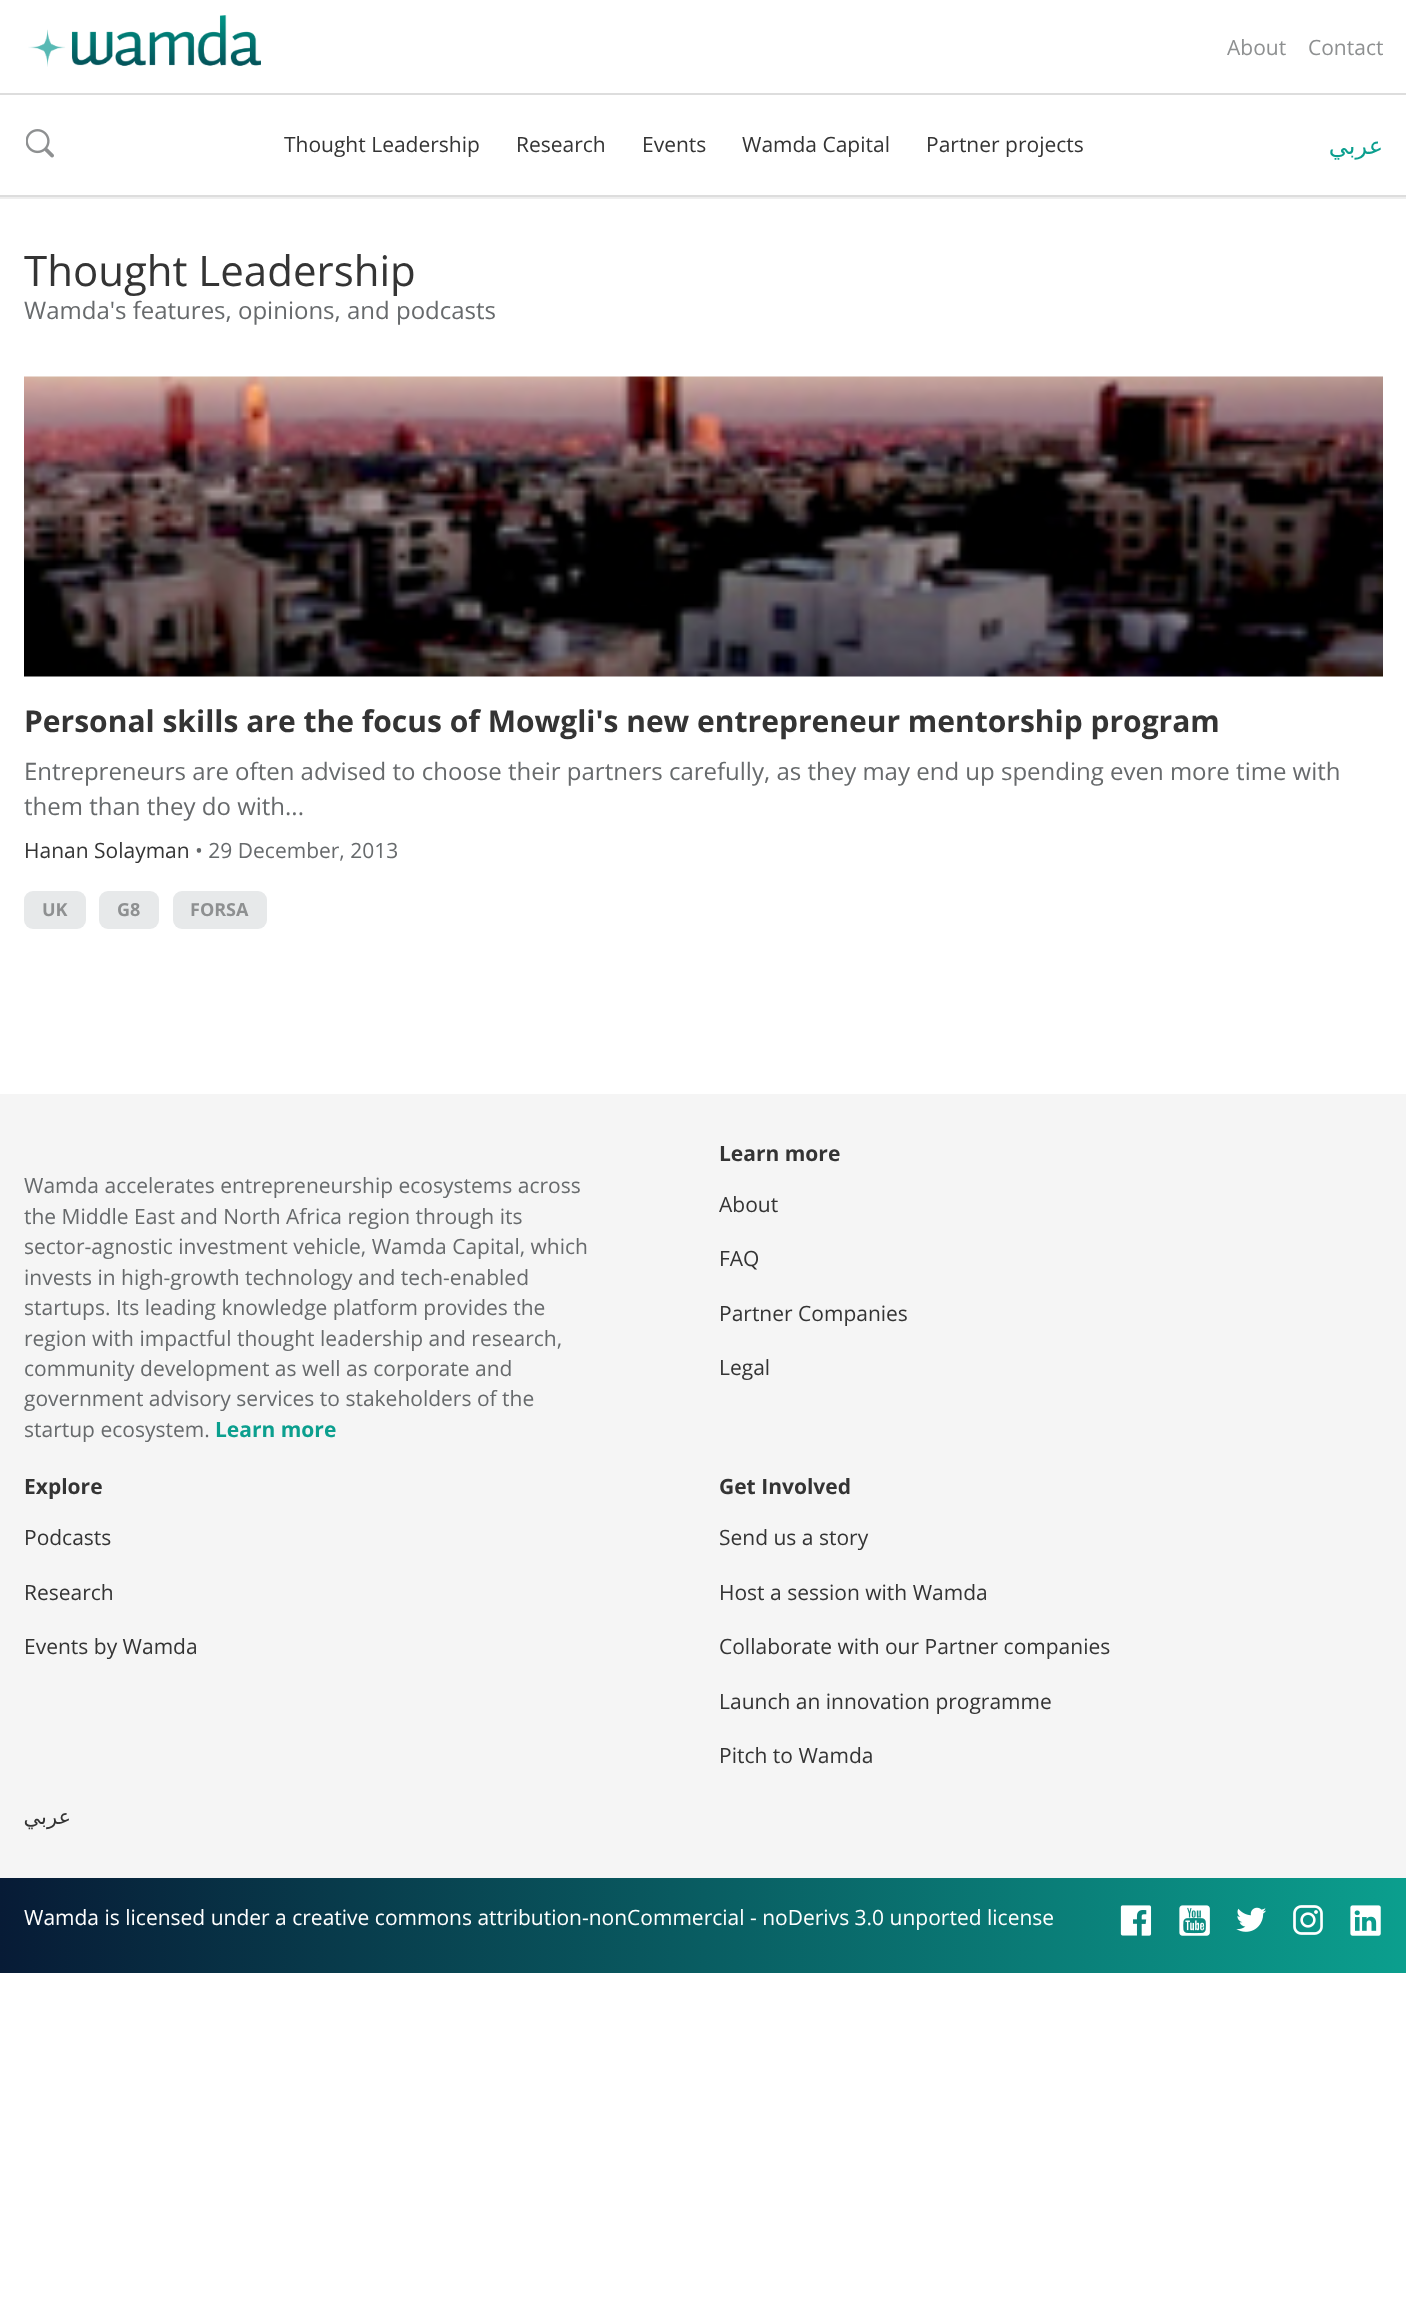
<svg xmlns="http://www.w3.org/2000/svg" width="1406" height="2324">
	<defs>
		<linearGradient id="g1" gradientUnits="userSpaceOnUse" x1="0" y1="1925" x2="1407" y2="1925"><stop offset="0" stop-color="#071B36" /><stop offset="1" stop-color="#0B9F8E" /></linearGradient>
	</defs>
	<rect width="100%" height="100%" fill="#FFFFFF" />
	<rect x="0" y="197" width="1406" height="2" fill="#EEEEEE" />
	<image x="28" y="15" width="233" height="52" href="assets/img1.png" />
	<g font-family="Open Sans" font-size="21" fill="#8E9091">
		<text x="1227" y="55">About</text>
		<text x="1308" y="55">Contact</text>
	</g>
	<rect x="0" y="93" width="1406" height="2" fill="#DDDDDD" />
	<rect x="0" y="195" width="1406" height="2" fill="#DDDDDD" />
	<image x="26" y="129" width="28" height="29" href="assets/img2.png" />
	<g font-family="Open Sans" font-size="21" fill="#343434">
		<text x="284" y="152">Thought Leadership</text>
		<text x="516" y="152">Research</text>
		<text x="642" y="152">Events</text>
		<text x="742" y="152">Wamda Capital</text>
		<text x="926" y="152">Partner projects</text>
	</g>
	<text x="1383" y="154" font-family="DejaVu Sans" font-size="24" direction="rtl" fill="#0B9F8E">عربي</text>
	<text x="24" y="286" font-family="Open Sans" font-size="42" fill="#343434">Thought Leadership</text>
	<text x="24" y="319" font-family="Open Sans" font-size="24" fill="#676A6C">Wamda's features, opinions, and podcasts</text>
	<image x="24" y="376" width="1359" height="301" href="assets/img3.png" />
	<text x="24" y="732" font-family="Open Sans" font-size="30" font-weight="700" fill="#343434">Personal skills are the focus of Mowgli's new entrepreneur mentorship program</text>
	<g font-family="Open Sans" font-size="24" fill="#676A6C">
		<text x="24" y="780">Entrepreneurs are often advised to choose their partners carefully, as they may end up spending even more time with</text>
		<text x="24" y="815">them than they do with...</text>
	</g>
	<text x="24" y="858" font-family="Open Sans" font-size="21" fill="#343434">Hanan Solayman</text>
	<text x="195" y="858" font-family="Open Sans" font-size="21" fill="#676A6C">• 29 December, 2013</text>
	<rect x="24" y="891" width="62" height="38" rx="9" fill="#E7E9EA" />
	<text x="42" y="916" font-family="Open Sans" font-size="18" font-weight="700" fill="#8E9091">UK</text>
	<rect x="99" y="891" width="60" height="38" rx="9" fill="#E7E9EA" />
	<text x="117" y="916" font-family="Open Sans" font-size="18" font-weight="700" fill="#8E9091">G8</text>
	<rect x="173" y="891" width="94" height="38" rx="9" fill="#E7E9EA" />
	<text x="190" y="916" font-family="Open Sans" font-size="18" font-weight="700" fill="#8E9091">FORSA</text>
	<rect x="0" y="1094" width="1406" height="784" fill="#F5F5F5" />
	<g font-family="Open Sans" font-size="21" fill="#676A6C">
		<text x="24" y="1193">Wamda accelerates entrepreneurship ecosystems across</text>
		<text x="24" y="1224">the Middle East and North Africa region through its</text>
		<text x="24" y="1254">sector-agnostic investment vehicle, Wamda Capital, which</text>
		<text x="24" y="1285">invests in high-growth technology and tech-enabled</text>
		<text x="24" y="1315">startups. Its leading knowledge platform provides the</text>
		<text x="24" y="1346">region with impactful thought leadership and research,</text>
		<text x="24" y="1376">community development as well as corporate and</text>
		<text x="24" y="1406">government advisory services to stakeholders of the</text>
		<text x="24" y="1437">startup ecosystem.</text>
	</g>
	<text x="215" y="1437" font-family="Open Sans" font-size="21" font-weight="700" fill="#0B9F8E">Learn more</text>
	<text x="719" y="1161" font-family="Open Sans" font-size="21" font-weight="700" fill="#343434">Learn more</text>
	<g font-family="Open Sans" font-size="21" fill="#343434">
		<text x="719" y="1212">About</text>
		<text x="719" y="1266">FAQ</text>
		<text x="719" y="1321">Partner Companies</text>
		<text x="719" y="1375">Legal</text>
	</g>
	<text x="24" y="1494" font-family="Open Sans" font-size="21" font-weight="700" fill="#343434">Explore</text>
	<g font-family="Open Sans" font-size="21" fill="#343434">
		<text x="24" y="1545">Podcasts</text>
		<text x="24" y="1600">Research</text>
		<text x="24" y="1654">Events by Wamda</text>
	</g>
	<text x="719" y="1494" font-family="Open Sans" font-size="21" font-weight="700" fill="#343434">Get Involved</text>
	<g font-family="Open Sans" font-size="21" fill="#343434">
		<text x="719" y="1545">Send us a story</text>
		<text x="719" y="1600">Host a session with Wamda</text>
		<text x="719" y="1654">Collaborate with our Partner companies</text>
		<text x="719" y="1709">Launch an innovation programme</text>
		<text x="719" y="1763">Pitch to Wamda</text>
	</g>
	<text x="71" y="1824" font-family="DejaVu Sans" font-size="21" direction="rtl" fill="#343434">عربي</text>
	<rect x="0" y="1878" width="1406" height="95" fill="url(#g1)" />
	<text x="24" y="1925" font-family="Open Sans" font-size="21" fill="#FFFFFF">Wamda is licensed under a creative commons attribution-nonCommercial - noDerivs 3.0 unported license</text>
	<image x="1120" y="1905" width="32" height="31" href="assets/img4.png" />
	<image x="1179" y="1905" width="31" height="31" href="assets/img5.png" />
	<image x="1236" y="1907" width="30" height="25" href="assets/img6.png" />
	<image x="1293" y="1905" width="30" height="30" href="assets/img7.png" />
	<image x="1350" y="1905" width="31" height="31" href="assets/img8.png" />
</svg>
